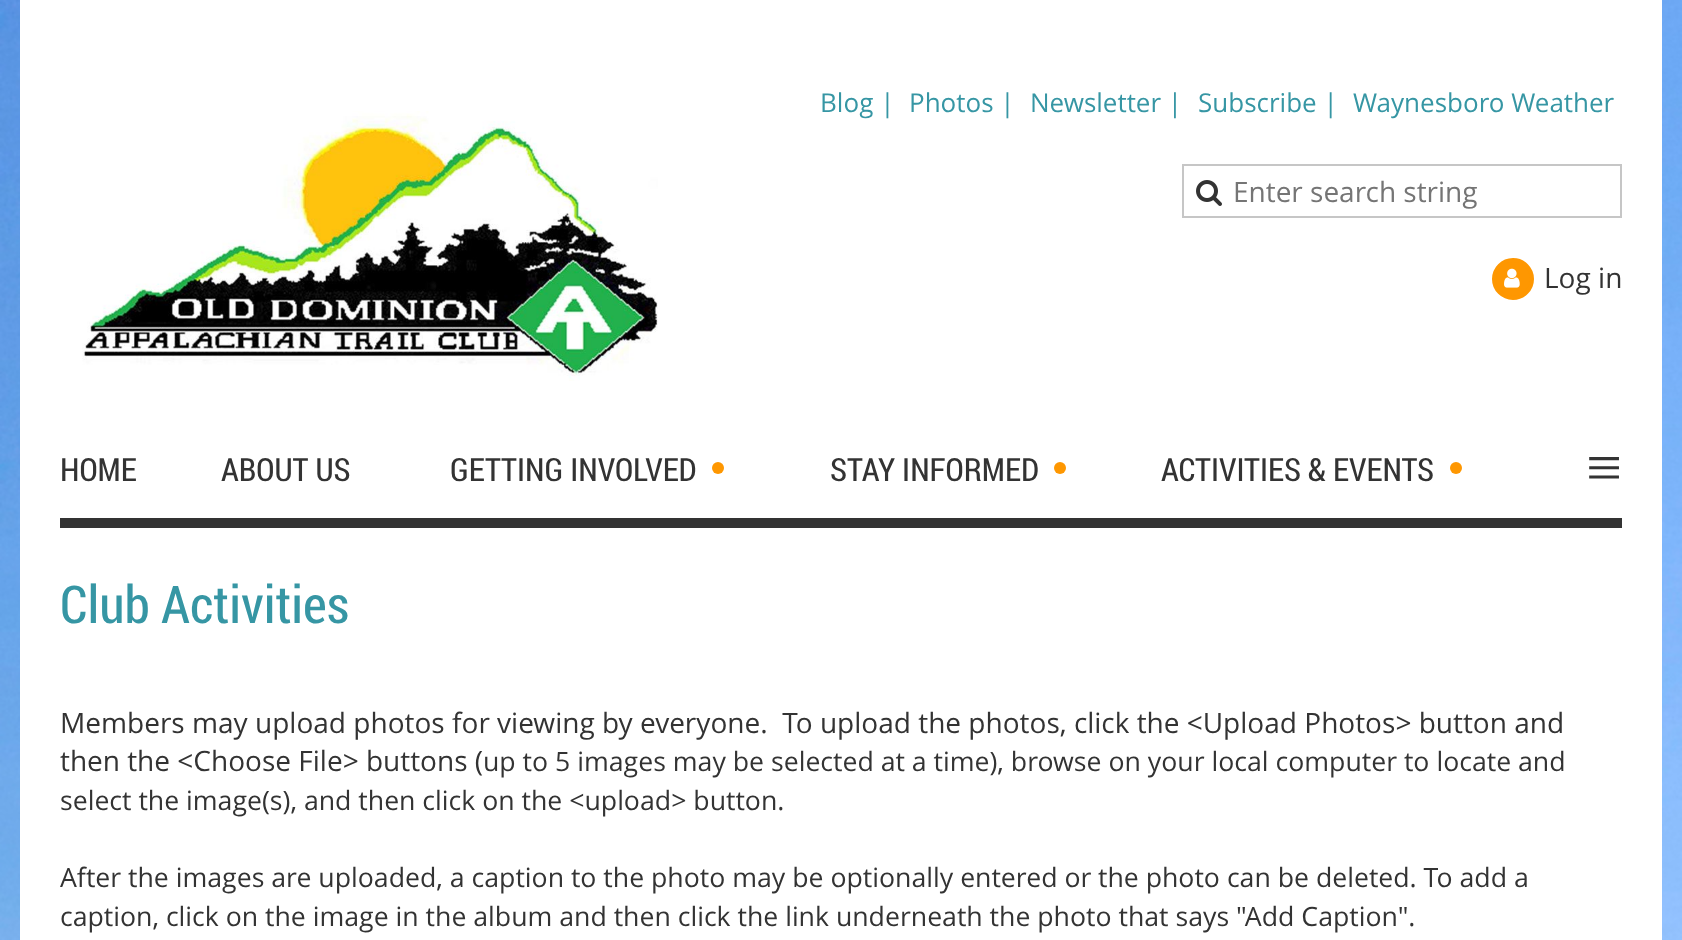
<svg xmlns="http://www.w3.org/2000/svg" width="1682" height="940">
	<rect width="100%" height="100%" fill="#FFFFFF" />
	<image x="0" y="0" width="1682" height="940" href="assets/img1.png" />
	<rect x="20" y="0" width="1642" height="940" fill="#FFFFFF" />
	<image x="82" y="111" width="576" height="270" href="assets/img2.png" />
	<g font-family="Open Sans" font-size="26" fill="#3696A4">
		<text x="820" y="112">Blog |</text>
		<text x="909" y="112">Photos |</text>
		<text x="1030" y="112">Newsletter |</text>
		<text x="1198" y="112">Subscribe |</text>
		<text x="1353" y="112">Waynesboro Weather</text>
	</g>
	<rect x="1183" y="165" width="438" height="52" fill="none" stroke="#C6C6C6" stroke-width="2" />
	<image x="1196" y="180" width="26" height="26" href="assets/img3.png" />
	<text x="1233" y="202" font-family="Open Sans" font-size="28" fill="#757575">Enter search string</text>
	<circle cx="1513" cy="279" r="19" fill="#FE9701" stroke="#FE9701" stroke-width="4" />
	<image x="1504" y="268" width="16" height="20" href="assets/img4.png" />
	<text x="1544" y="288" font-family="Open Sans" font-size="28" fill="#333333">Log in</text>
	<rect x="60" y="518" width="1562" height="10" fill="#333333" />
	<g font-family="Roboto Condensed" font-size="32" fill="#333333">
		<text x="60" y="481">HOME</text>
		<text x="221" y="481">ABOUT US</text>
		<text x="450" y="481">GETTING INVOLVED</text>
	</g>
	<circle cx="718" cy="468" r="6" fill="#FE9701" />
	<text x="830" y="481" font-family="Roboto Condensed" font-size="32" fill="#333333">STAY INFORMED</text>
	<circle cx="1060" cy="468" r="6" fill="#FE9701" />
	<text x="1161" y="481" font-family="Roboto Condensed" font-size="32" fill="#333333">ACTIVITIES &amp; EVENTS</text>
	<circle cx="1456" cy="468" r="6" fill="#FE9701" />
	<text x="1586" y="489" font-family="Liberation Serif" font-size="64" fill="#333333">≡</text>
	<text x="60" y="623" font-family="Roboto Condensed" font-size="52" fill="#3696A4">Club Activities</text>
	<g font-family="Open Sans" font-size="28" fill="#333333">
		<text x="60" y="733" xml:space="preserve">Members may upload photos for viewing by everyone.  To upload the photos, click the &lt;Upload Photos&gt; button and</text>
		<text x="60" y="771">then the &lt;Choose File&gt; buttons (</text>
	</g>
	<g font-family="Open Sans" font-size="26.67" fill="#333333">
		<text x="483" y="771">up to 5 images may be selected at a time), browse on your local computer to locate and</text>
		<text x="60" y="810">select the image(s), and then click on the &lt;upload&gt; button.</text>
		<text x="60" y="887">After the images are uploaded, a caption to the photo may be optionally entered or</text>
		<text x="1098" y="887">the photo can be deleted. To add a</text>
		<text x="60" y="926">caption, click on the image in the album and then click the link underneath the photo that says "Add Caption".</text>
	</g>
</svg>
